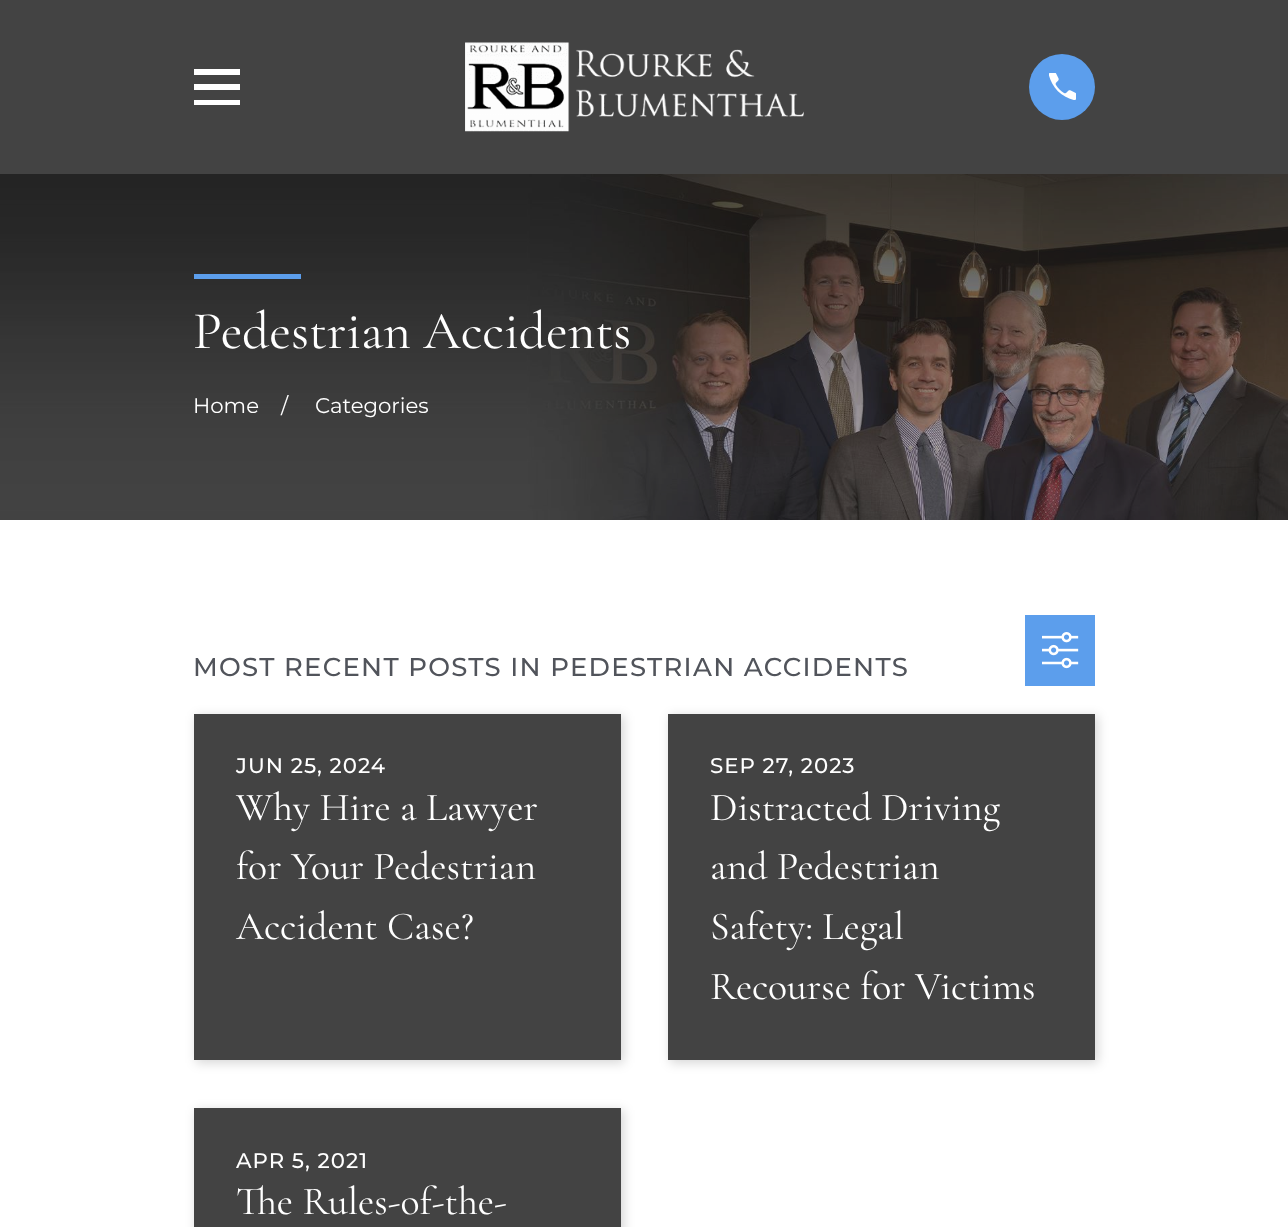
<svg xmlns="http://www.w3.org/2000/svg" width="1288" height="1227">
	<defs>
		<clipPath id="clip1"><rect x="194" y="64" width="46" height="46" /></clipPath>
	</defs>
	<rect width="100%" height="100%" fill="#FFFFFF" />
	<rect x="0" y="0" width="1288" height="520" fill="#434343" />
	<g clip-path="url(#clip1)">
		<path d="M194 69V75H241V69ZM194 84V90H241V84ZM194 100V105H241V100Z" fill="#FFFFFF" />
	</g>
	<image x="465" y="42" width="339" height="90" href="assets/img1.png" />
	<circle cx="1062" cy="87" r="33" fill="#5C9EEC" />
	<image x="1049" y="73" width="27" height="27" href="assets/img2.png" />
	<image x="0" y="174" width="1288" height="346" href="assets/img3.png" />
	<rect x="194" y="274" width="107" height="5" fill="#5C9EEC" />
	<text x="193" y="348" font-family="Cormorant Garamond" font-size="53.25" fill="#FFFFFF">Pedestrian Accidents</text>
	<g font-family="Montserrat" font-size="21.25" fill="#FFFFFF">
		<text x="193" y="413">Home</text>
		<text x="281" y="413">/</text>
		<text x="315" y="413">Categories</text>
	</g>
	<text x="193" y="676" font-family="Montserrat" font-size="25.9" font-weight="500" letter-spacing="1.3" fill="#51545B">MOST RECENT POSTS IN PEDESTRIAN ACCIDENTS</text>
	<rect x="1025" y="615" width="70" height="71" fill="#5C9EEC" />
	<image x="1042" y="632" width="37" height="37" href="assets/img4.png" />
	<rect x="196" y="716" width="428" height="347" fill="#000000" fill-opacity="0.16" filter="blur(5.5px)" />
	<rect x="194" y="714" width="427" height="346" fill="#434343" />
	<text x="236" y="773" font-family="Montserrat" font-size="21.25" font-weight="500" letter-spacing="1" fill="#FFFFFF">JUN 25, 2024</text>
	<g font-family="Cormorant Garamond" font-size="39.75" fill="#FFFFFF">
		<text x="236" y="820">Why Hire a Lawyer</text>
		<text x="236" y="879">for Your Pedestrian</text>
		<text x="236" y="939">Accident Case?</text>
	</g>
	<rect x="670" y="716" width="428" height="347" fill="#000000" fill-opacity="0.16" filter="blur(5.5px)" />
	<rect x="668" y="714" width="427" height="346" fill="#434343" />
	<text x="710" y="773" font-family="Montserrat" font-size="21.25" font-weight="500" letter-spacing="1" fill="#FFFFFF">SEP 27, 2023</text>
	<g font-family="Cormorant Garamond" font-size="39.75" fill="#FFFFFF">
		<text x="710" y="820">Distracted Driving</text>
		<text x="710" y="879">and Pedestrian</text>
		<text x="710" y="939">Safety: Legal</text>
		<text x="710" y="999">Recourse for Victims</text>
	</g>
	<rect x="196" y="1110" width="428" height="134" fill="#000000" fill-opacity="0.16" filter="blur(5.5px)" />
	<rect x="194" y="1108" width="427" height="119" fill="#434343" />
	<text x="236" y="1168" font-family="Montserrat" font-size="21.25" font-weight="500" letter-spacing="1" fill="#FFFFFF">APR 5, 2021</text>
	<text x="236" y="1214" font-family="Cormorant Garamond" font-size="39.75" fill="#FFFFFF">The Rules-of-the-</text>
</svg>
